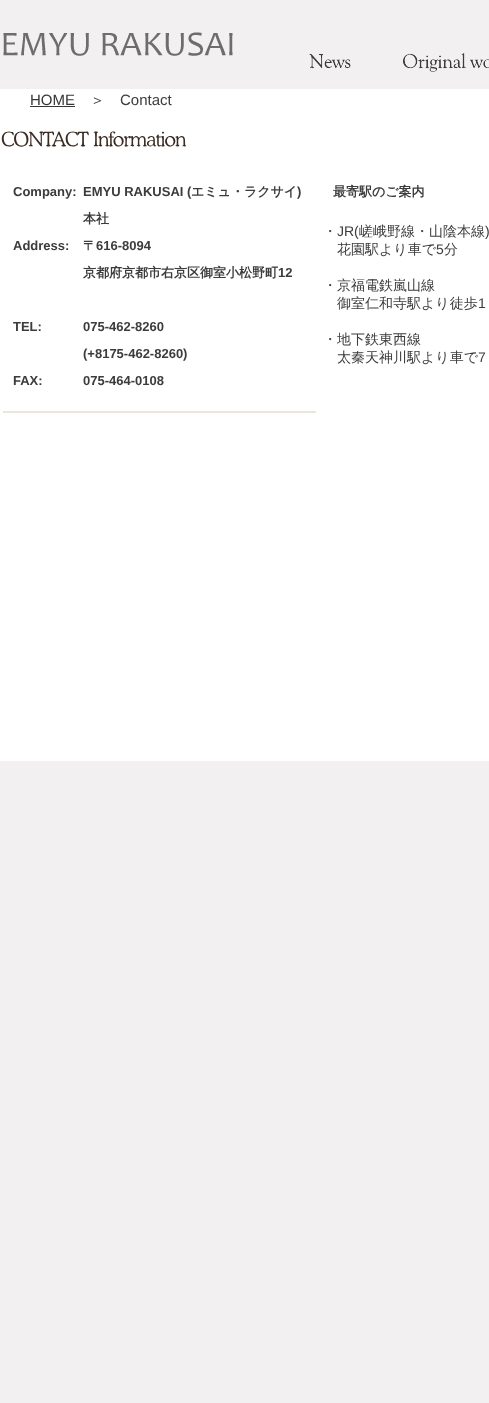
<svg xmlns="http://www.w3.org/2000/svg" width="489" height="1403">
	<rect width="100%" height="100%" fill="#F2F0F0" />
	<rect x="0" y="89" width="489" height="672" fill="#FFFFFF" />
	<image x="3" y="32" width="230" height="24" href="assets/img1.png" />
	<image x="309" y="54" width="42" height="15" href="assets/img2.png" />
	<image x="403" y="53" width="86" height="19" href="assets/img3.png" />
	<text x="30" y="105" font-family="Liberation Sans" font-size="15" fill="#363636">HOME</text>
	<rect x="30" y="106" width="45" height="1" fill="#363636" />
	<text x="90" y="105" font-family="WenQuanYi Zen Hei" font-size="15" font-weight="500" fill="#3D3B3B">＞</text>
	<text x="120" y="105" font-family="Liberation Sans" font-size="15" fill="#3D3B3B">Contact</text>
	<image x="1" y="131" width="88" height="16" href="assets/img4.png" />
	<image x="93" y="131" width="94" height="16" href="assets/img5.png" />
	<g font-family="Liberation Sans" font-size="13" font-weight="700" fill="#3D3B3B">
		<text x="13" y="196">Company:</text>
		<text x="83" y="196">EMYU RAKUSAI (</text>
	</g>
	<text x="191" y="196" font-family="WenQuanYi Zen Hei" font-size="13" font-weight="700" fill="#3D3B3B">エミュ・ラクサイ</text>
	<text x="297" y="196" font-family="Liberation Sans" font-size="13" font-weight="700" fill="#3D3B3B">)</text>
	<text x="83" y="223" font-family="WenQuanYi Zen Hei" font-size="13" font-weight="700" fill="#3D3B3B">本社</text>
	<text x="13" y="250" font-family="Liberation Sans" font-size="13" font-weight="700" fill="#3D3B3B">Address:</text>
	<text x="83" y="250" font-family="WenQuanYi Zen Hei" font-size="13" font-weight="700" fill="#3D3B3B">〒</text>
	<text x="96" y="250" font-family="Liberation Sans" font-size="13" font-weight="700" fill="#3D3B3B">616-8094</text>
	<text x="83" y="277" font-family="WenQuanYi Zen Hei" font-size="13" font-weight="700" fill="#3D3B3B">京都府京都市右京区御室小松野町</text>
	<g font-family="Liberation Sans" font-size="13" font-weight="700" fill="#3D3B3B">
		<text x="278" y="277">12</text>
		<text x="13" y="331">TEL:</text>
		<text x="83" y="331">075-462-8260</text>
		<text x="83" y="358">(+8175-462-8260)</text>
		<text x="13" y="385">FAX:</text>
		<text x="83" y="385">075-464-0108</text>
	</g>
	<rect x="3" y="411" width="313" height="2" fill="#EAE6DA" />
	<text x="333" y="196" font-family="WenQuanYi Zen Hei" font-size="13" font-weight="700" fill="#3D3B3B">最寄駅のご案内</text>
	<text x="323" y="236" font-family="WenQuanYi Zen Hei" font-size="14" font-weight="500" fill="#3D3B3B">・</text>
	<text x="337" y="236" font-family="Liberation Sans" font-size="14" fill="#3D3B3B">JR(</text>
	<text x="359" y="236" font-family="WenQuanYi Zen Hei" font-size="14" font-weight="500" fill="#3D3B3B">嵯峨野線・山陰本線</text>
	<text x="485" y="236" font-family="Liberation Sans" font-size="14" fill="#3D3B3B">)</text>
	<text x="337" y="254" font-family="WenQuanYi Zen Hei" font-size="14" font-weight="500" fill="#3D3B3B">花園駅より車で</text>
	<text x="436" y="254" font-family="Liberation Sans" font-size="14" fill="#3D3B3B">5</text>
	<g font-family="WenQuanYi Zen Hei" font-size="14" font-weight="500" fill="#3D3B3B">
		<text x="444" y="254">分</text>
		<text x="323" y="290">・京福電鉄嵐山線</text>
		<text x="337" y="308">御室仁和寺駅より徒歩</text>
	</g>
	<text x="478" y="308" font-family="Liberation Sans" font-size="14" fill="#3D3B3B">1</text>
	<g font-family="WenQuanYi Zen Hei" font-size="14" font-weight="500" fill="#3D3B3B">
		<text x="323" y="344">・地下鉄東西線</text>
		<text x="337" y="362">太秦天神川駅より車で</text>
	</g>
	<text x="478" y="362" font-family="Liberation Sans" font-size="14" fill="#3D3B3B">7</text>
</svg>
